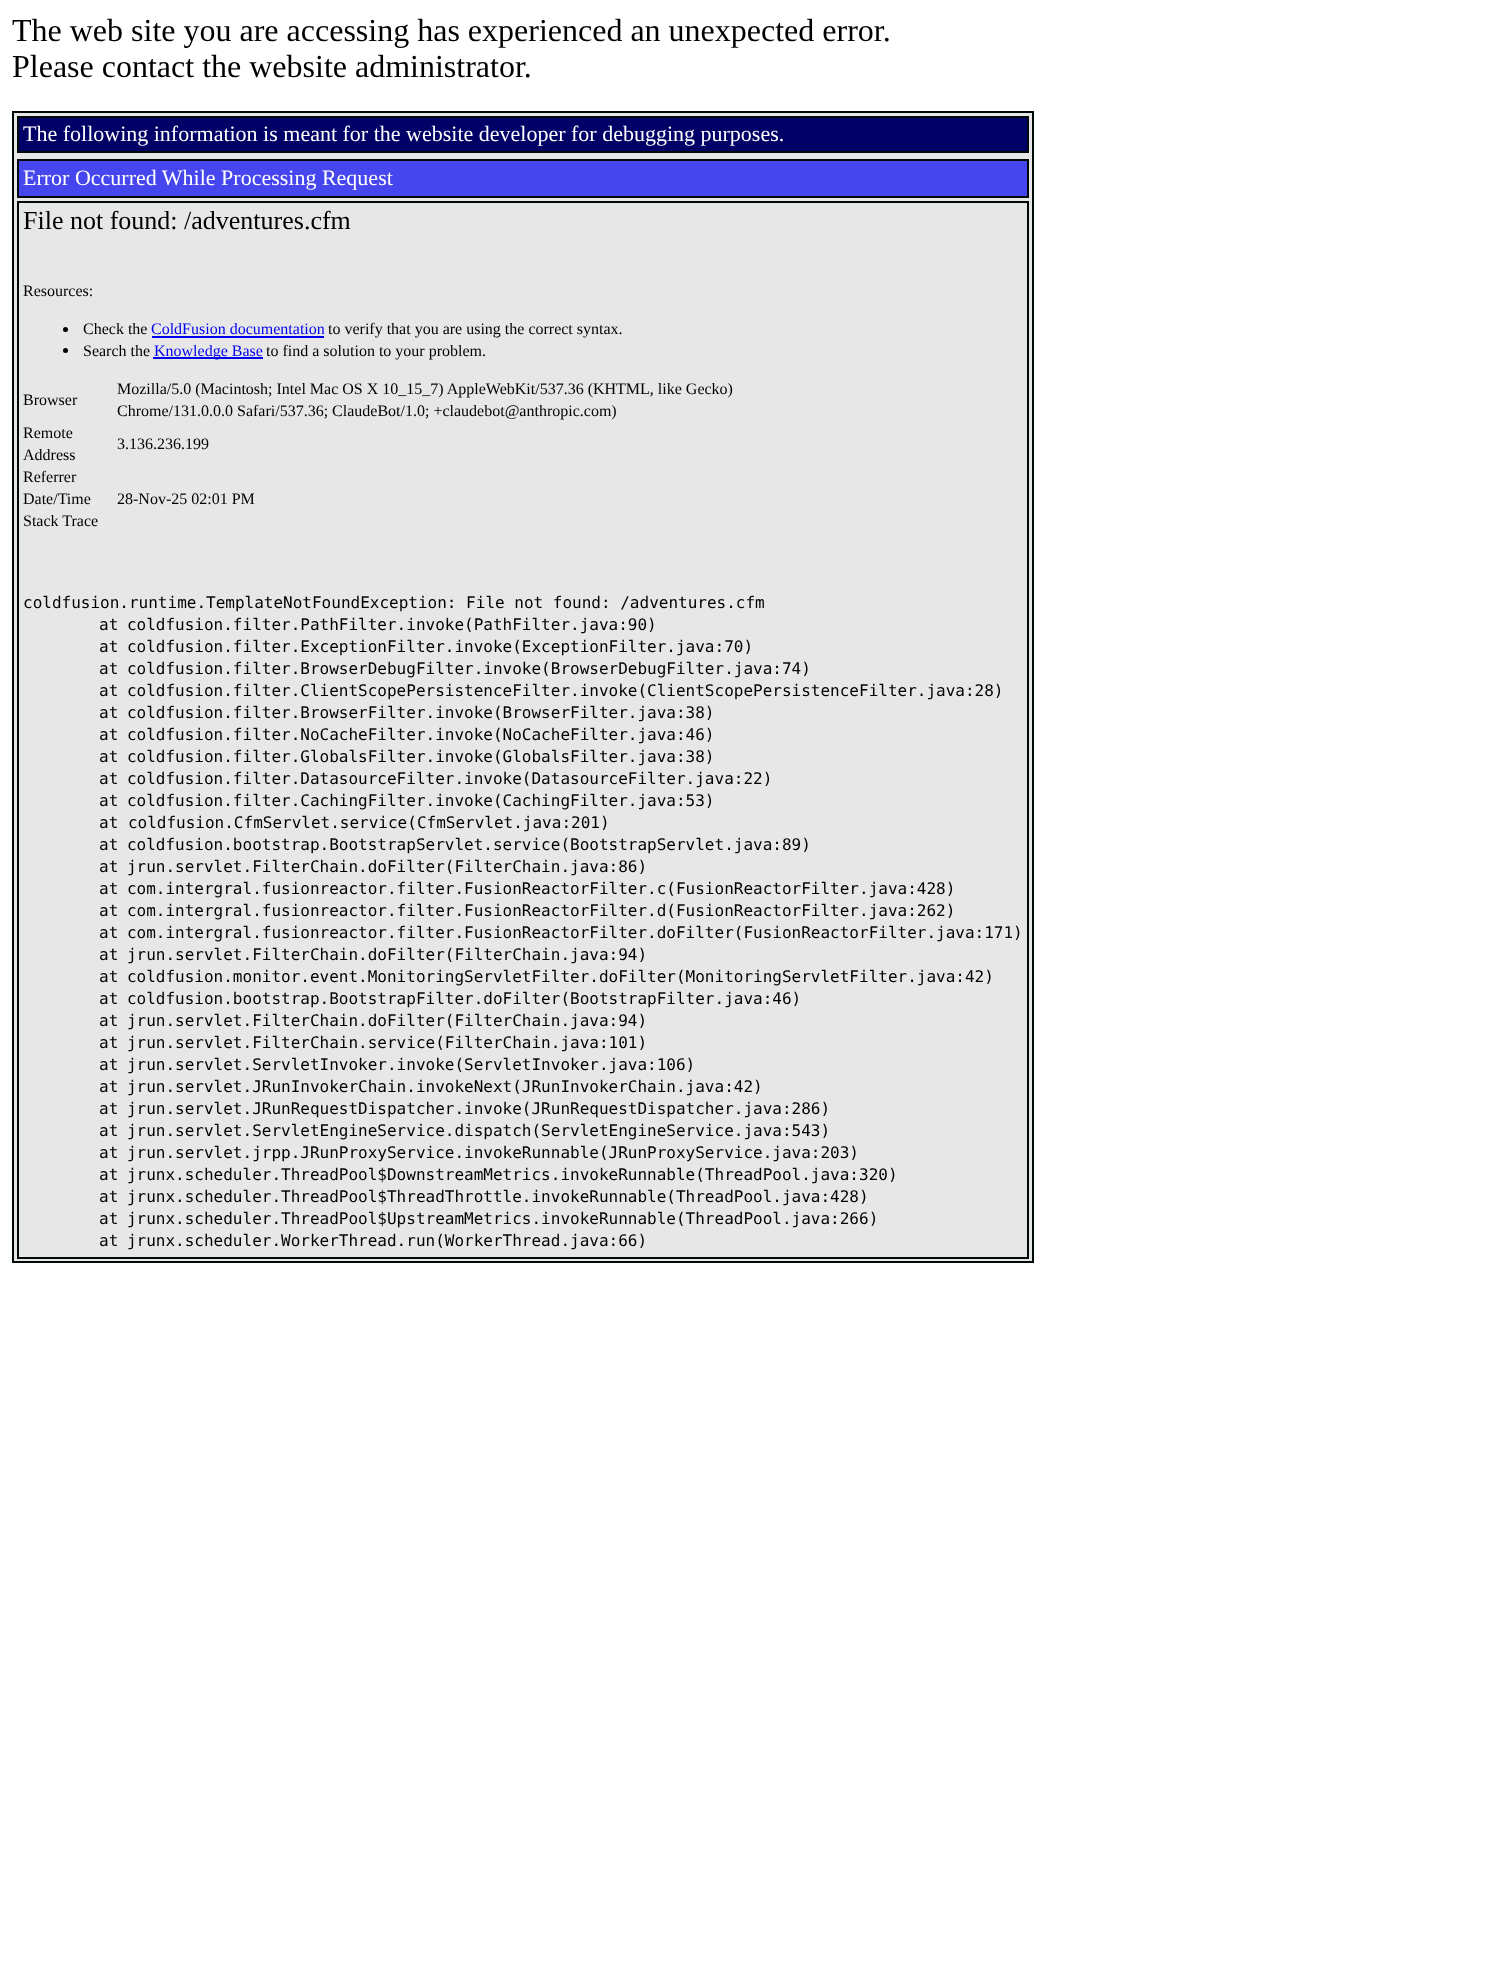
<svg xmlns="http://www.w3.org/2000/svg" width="1495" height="1970">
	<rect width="100%" height="100%" fill="#FFFFFF" />
	<g font-family="Liberation Serif" font-size="32" fill="#000000">
		<text x="12" y="41">The web site you are accessing has experienced an unexpected error.</text>
		<text x="12" y="77">Please contact the website administrator.</text>
	</g>
	<rect x="13" y="112" width="1020" height="1150" fill="#E7E7E7" stroke="#000808" stroke-width="2" />
	<rect x="18" y="117" width="1010" height="35" fill="#000066" stroke="#000808" stroke-width="2" />
	<text x="23" y="141" font-family="Liberation Serif" font-size="22" fill="#FFFFFF">The following information is meant for the website developer for debugging purposes.</text>
	<rect x="18" y="160" width="1010" height="37" fill="#4646EE" stroke="#000808" stroke-width="2" />
	<text x="23" y="185" font-family="Liberation Serif" font-size="22" fill="#FFFFFF">Error Occurred While Processing Request</text>
	<rect x="18" y="202" width="1010" height="1056" fill="none" stroke="#000808" stroke-width="2" />
	<text x="23" y="229" font-family="Liberation Serif" font-size="26" fill="#000000">File not found: /adventures.cfm</text>
	<text x="23" y="296" font-family="Liberation Serif" font-size="16" fill="#000000">Resources:</text>
	<circle cx="65.5" cy="329.5" r="2.5" fill="#000000" />
	<text x="83" y="334" font-family="Liberation Serif" font-size="16" fill="#000000">Check the</text>
	<text x="151" y="334" font-family="Liberation Serif" font-size="16" fill="#0000EE">ColdFusion documentation</text>
	<rect x="152" y="336" width="172" height="2" fill="#0000EE" />
	<text x="328" y="334" font-family="Liberation Serif" font-size="16" fill="#000000">to verify that you are using the correct syntax.</text>
	<circle cx="65.5" cy="350.5" r="2.5" fill="#000000" />
	<text x="83" y="356" font-family="Liberation Serif" font-size="16" fill="#000000">Search the</text>
	<rect x="153" y="357" width="110" height="2" fill="#0000EE" />
	<text x="154" y="356" font-family="Liberation Serif" font-size="16" fill="#0000EE">Knowledge Base</text>
	<g font-family="Liberation Serif" font-size="16" fill="#000000">
		<text x="266" y="356">to find a solution to your problem.</text>
		<text x="23" y="405">Browser</text>
		<text x="117" y="394">Mozilla/5.0 (Macintosh; Intel Mac OS X 10_15_7) AppleWebKit/537.36 (KHTML, like Gecko)</text>
		<text x="117" y="416">Chrome/131.0.0.0 Safari/537.36; ClaudeBot/1.0; +claudebot@anthropic.com)</text>
		<text x="23" y="438">Remote</text>
		<text x="23" y="460">Address</text>
		<text x="117" y="449">3.136.236.199</text>
		<text x="23" y="482">Referrer</text>
		<text x="23" y="504">Date/Time</text>
		<text x="117" y="504">28-Nov-25 02:01 PM</text>
		<text x="23" y="526">Stack Trace</text>
	</g>
	<g font-family="DejaVu Sans Mono" font-size="16" fill="#000000">
		<text x="23" y="608">coldfusion.runtime.TemplateNotFoundException: File not found: /adventures.cfm</text>
		<text x="99" y="630" word-spacing="-1">at coldfusion.filter.PathFilter.invoke(PathFilter.java:90)</text>
		<text x="99" y="652" word-spacing="-1">at coldfusion.filter.ExceptionFilter.invoke(ExceptionFilter.java:70)</text>
		<text x="99" y="674" word-spacing="-1">at coldfusion.filter.BrowserDebugFilter.invoke(BrowserDebugFilter.java:74)</text>
		<text x="99" y="696" word-spacing="-1">at coldfusion.filter.ClientScopePersistenceFilter.invoke(ClientScopePersistenceFilter.java:28)</text>
		<text x="99" y="718" word-spacing="-1">at coldfusion.filter.BrowserFilter.invoke(BrowserFilter.java:38)</text>
		<text x="99" y="740" word-spacing="-1">at coldfusion.filter.NoCacheFilter.invoke(NoCacheFilter.java:46)</text>
		<text x="99" y="762" word-spacing="-1">at coldfusion.filter.GlobalsFilter.invoke(GlobalsFilter.java:38)</text>
		<text x="99" y="784" word-spacing="-1">at coldfusion.filter.DatasourceFilter.invoke(DatasourceFilter.java:22)</text>
		<text x="99" y="806" word-spacing="-1">at coldfusion.filter.CachingFilter.invoke(CachingFilter.java:53)</text>
		<text x="99" y="828">at coldfusion.CfmServlet.service(CfmServlet.java:201)</text>
		<text x="99" y="850" word-spacing="-1">at coldfusion.bootstrap.BootstrapServlet.service(BootstrapServlet.java:89)</text>
		<text x="99" y="872" word-spacing="-1">at jrun.servlet.FilterChain.doFilter(FilterChain.java:86)</text>
		<text x="99" y="894" word-spacing="-1">at com.intergral.fusionreactor.filter.FusionReactorFilter.c(FusionReactorFilter.java:428)</text>
		<text x="99" y="916" word-spacing="-1">at com.intergral.fusionreactor.filter.FusionReactorFilter.d(FusionReactorFilter.java:262)</text>
		<text x="99" y="938" word-spacing="-1">at com.intergral.fusionreactor.filter.FusionReactorFilter.doFilter(FusionReactorFilter.java:171)</text>
		<text x="99" y="960" word-spacing="-1">at jrun.servlet.FilterChain.doFilter(FilterChain.java:94)</text>
		<text x="99" y="982" word-spacing="-1">at coldfusion.monitor.event.MonitoringServletFilter.doFilter(MonitoringServletFilter.java:42)</text>
		<text x="99" y="1004" word-spacing="-1">at coldfusion.bootstrap.BootstrapFilter.doFilter(BootstrapFilter.java:46)</text>
		<text x="99" y="1026" word-spacing="-1">at jrun.servlet.FilterChain.doFilter(FilterChain.java:94)</text>
		<text x="99" y="1048" word-spacing="-1">at jrun.servlet.FilterChain.service(FilterChain.java:101)</text>
		<text x="99" y="1070" word-spacing="-1">at jrun.servlet.ServletInvoker.invoke(ServletInvoker.java:106)</text>
		<text x="99" y="1092" word-spacing="-1">at jrun.servlet.JRunInvokerChain.invokeNext(JRunInvokerChain.java:42)</text>
		<text x="99" y="1114" word-spacing="-1">at jrun.servlet.JRunRequestDispatcher.invoke(JRunRequestDispatcher.java:286)</text>
		<text x="99" y="1136" word-spacing="-1">at jrun.servlet.ServletEngineService.dispatch(ServletEngineService.java:543)</text>
		<text x="99" y="1158" word-spacing="-1">at jrun.servlet.jrpp.JRunProxyService.invokeRunnable(JRunProxyService.java:203)</text>
		<text x="99" y="1180" word-spacing="-1">at jrunx.scheduler.ThreadPool$DownstreamMetrics.invokeRunnable(ThreadPool.java:320)</text>
		<text x="99" y="1202" word-spacing="-1">at jrunx.scheduler.ThreadPool$ThreadThrottle.invokeRunnable(ThreadPool.java:428)</text>
		<text x="99" y="1224" word-spacing="-1">at jrunx.scheduler.ThreadPool$UpstreamMetrics.invokeRunnable(ThreadPool.java:266)</text>
		<text x="99" y="1246" word-spacing="-1">at jrunx.scheduler.WorkerThread.run(WorkerThread.java:66)</text>
	</g>
</svg>
